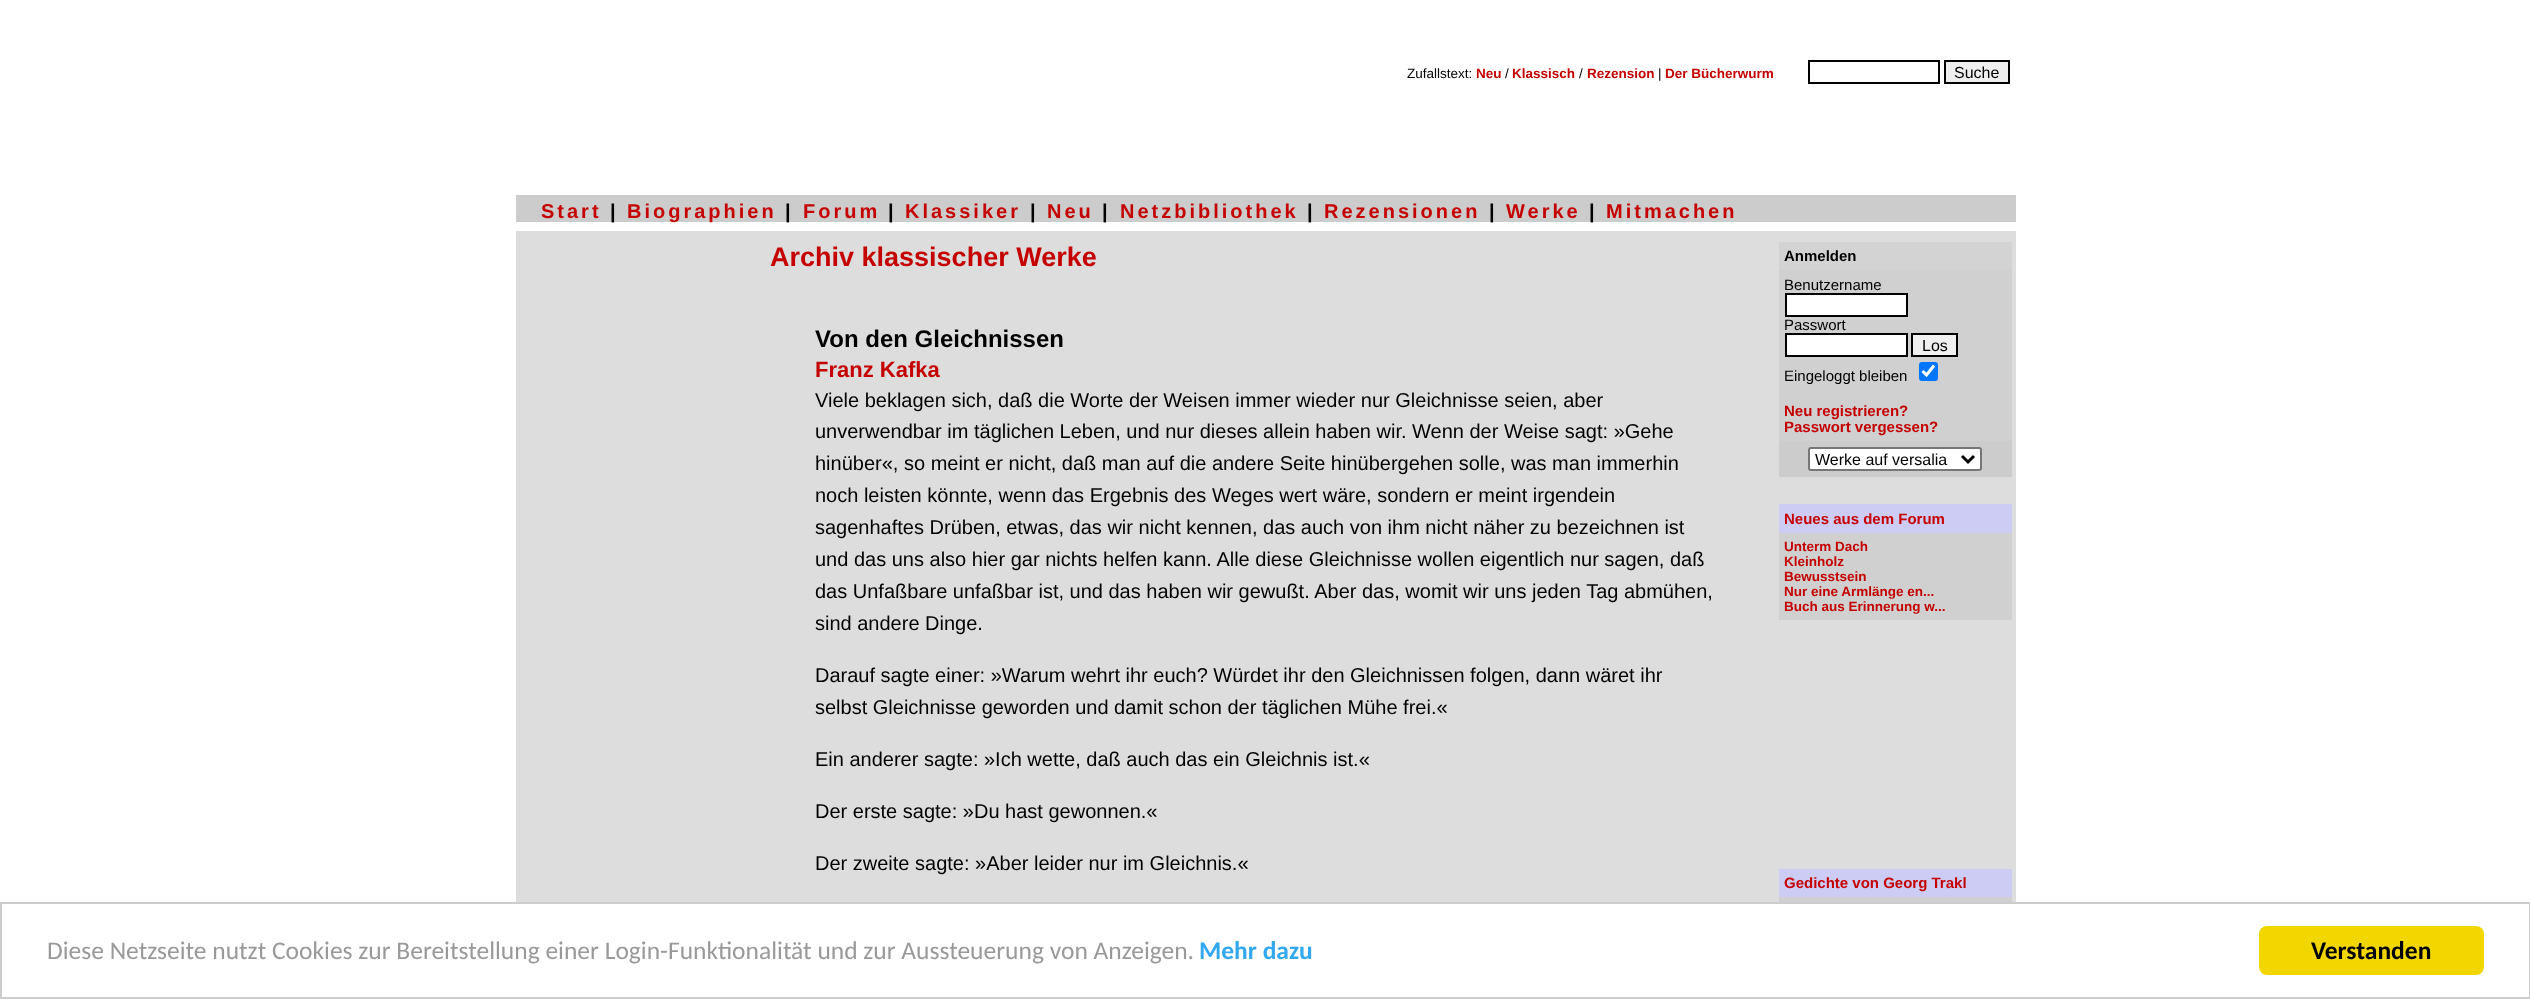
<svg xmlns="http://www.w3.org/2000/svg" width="2530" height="999">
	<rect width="100%" height="100%" fill="#FFFFFF" />
	<text x="1407" y="78" font-family="Liberation Sans" font-size="13.5" fill="#000000">Zufallstext:</text>
	<text x="1476" y="78" font-family="Liberation Sans" font-size="13.5" font-weight="700" fill="#C40000">Neu</text>
	<text x="1505" y="78" font-family="Liberation Sans" font-size="13.5" fill="#000000">/</text>
	<text x="1512" y="78" font-family="Liberation Sans" font-size="13.5" font-weight="700" fill="#C40000">Klassisch</text>
	<text x="1579" y="78" font-family="Liberation Sans" font-size="13.5" fill="#000000">/</text>
	<text x="1587" y="78" font-family="Liberation Sans" font-size="13.5" font-weight="700" fill="#C40000">Rezension</text>
	<text x="1658" y="78" font-family="Liberation Sans" font-size="13.5" fill="#000000">|</text>
	<text x="1665" y="78" font-family="Liberation Sans" font-size="13.5" font-weight="700" fill="#C40000">Der Bücherwurm</text>
	<rect x="1809" y="61" width="130" height="22" fill="none" stroke="#000000" stroke-width="2" />
	<rect x="1945" y="61" width="64" height="22" fill="#EFEFEF" stroke="#000000" stroke-width="2" />
	<text x="1954" y="78" font-family="Liberation Sans" font-size="16" fill="#000000">Suche</text>
	<rect x="516" y="195" width="1500" height="27" fill="#CCCCCC" />
	<text x="541" y="218" font-family="Liberation Sans" font-size="20" font-weight="700" letter-spacing="3" fill="#C40000">Start</text>
	<text x="610" y="218" font-family="Liberation Sans" font-size="20" font-weight="700" letter-spacing="3" fill="#000000">|</text>
	<text x="627" y="218" font-family="Liberation Sans" font-size="20" font-weight="700" letter-spacing="3" fill="#C40000">Biographien</text>
	<text x="785" y="218" font-family="Liberation Sans" font-size="20" font-weight="700" letter-spacing="3" fill="#000000">|</text>
	<text x="803" y="218" font-family="Liberation Sans" font-size="20" font-weight="700" letter-spacing="3" fill="#C40000">Forum</text>
	<text x="888" y="218" font-family="Liberation Sans" font-size="20" font-weight="700" letter-spacing="3" fill="#000000">|</text>
	<text x="905" y="218" font-family="Liberation Sans" font-size="20" font-weight="700" letter-spacing="3" fill="#C40000">Klassiker</text>
	<text x="1030" y="218" font-family="Liberation Sans" font-size="20" font-weight="700" letter-spacing="3" fill="#000000">|</text>
	<text x="1047" y="218" font-family="Liberation Sans" font-size="20" font-weight="700" letter-spacing="3" fill="#C40000">Neu</text>
	<text x="1102" y="218" font-family="Liberation Sans" font-size="20" font-weight="700" letter-spacing="3" fill="#000000">|</text>
	<text x="1120" y="218" font-family="Liberation Sans" font-size="20" font-weight="700" letter-spacing="3" fill="#C40000">Netzbibliothek</text>
	<text x="1307" y="218" font-family="Liberation Sans" font-size="20" font-weight="700" letter-spacing="3" fill="#000000">|</text>
	<text x="1324" y="218" font-family="Liberation Sans" font-size="20" font-weight="700" letter-spacing="3" fill="#C40000">Rezensionen</text>
	<text x="1489" y="218" font-family="Liberation Sans" font-size="20" font-weight="700" letter-spacing="3" fill="#000000">|</text>
	<text x="1506" y="218" font-family="Liberation Sans" font-size="20" font-weight="700" letter-spacing="3" fill="#C40000">Werke</text>
	<text x="1589" y="218" font-family="Liberation Sans" font-size="20" font-weight="700" letter-spacing="3" fill="#000000">|</text>
	<text x="1606" y="218" font-family="Liberation Sans" font-size="20" font-weight="700" letter-spacing="3" fill="#C40000">Mitmachen</text>
	<rect x="516" y="231" width="1500" height="671" fill="#DDDDDD" />
	<text x="770" y="266" font-family="Liberation Sans" font-size="27" font-weight="700" fill="#C40000">Archiv klassischer Werke</text>
	<text x="815" y="347" font-family="Liberation Sans" font-size="24" font-weight="700" fill="#000000">Von den Gleichnissen</text>
	<text x="815" y="377" font-family="Liberation Sans" font-size="22" font-weight="700" fill="#C40000">Franz Kafka</text>
	<g font-family="Liberation Sans" font-size="20" fill="#000000">
		<text x="815" y="407">Viele beklagen sich, daß die Worte der Weisen immer wieder nur Gleichnisse seien, aber</text>
		<text x="815" y="438">unverwendbar im täglichen Leben, und nur dieses allein haben wir. Wenn der Weise sagt: »Gehe</text>
		<text x="815" y="470">hinüber«, so meint er nicht, daß man auf die andere Seite hinübergehen solle, was man immerhin</text>
		<text x="815" y="502">noch leisten könnte, wenn das Ergebnis des Weges wert wäre, sondern er meint irgendein</text>
		<text x="815" y="534">sagenhaftes Drüben, etwas, das wir nicht kennen, das auch von ihm nicht näher zu bezeichnen ist</text>
		<text x="815" y="566">und das uns also hier gar nichts helfen kann. Alle diese Gleichnisse wollen eigentlich nur sagen, daß</text>
		<text x="815" y="598">das Unfaßbare unfaßbar ist, und das haben wir gewußt. Aber das, womit wir uns jeden Tag abmühen,</text>
		<text x="815" y="630">sind andere Dinge.</text>
		<text x="815" y="682">Darauf sagte einer: »Warum wehrt ihr euch? Würdet ihr den Gleichnissen folgen, dann wäret ihr</text>
		<text x="815" y="714">selbst Gleichnisse geworden und damit schon der täglichen Mühe frei.«</text>
		<text x="815" y="766">Ein anderer sagte: »Ich wette, daß auch das ein Gleichnis ist.«</text>
		<text x="815" y="818">Der erste sagte: »Du hast gewonnen.«</text>
		<text x="815" y="870">Der zweite sagte: »Aber leider nur im Gleichnis.«</text>
	</g>
	<rect x="1779" y="242" width="233" height="28" fill="#D3D3D3" />
	<text x="1784" y="261" font-family="Liberation Sans" font-size="15" font-weight="700" fill="#000000">Anmelden</text>
	<rect x="1779" y="270" width="233" height="171" fill="#D0D0D0" />
	<text x="1784" y="290" font-family="Liberation Sans" font-size="15" fill="#000000">Benutzername</text>
	<rect x="1786" y="294" width="121" height="22" fill="#FFFFFF" stroke="#000000" stroke-width="2" />
	<text x="1784" y="330" font-family="Liberation Sans" font-size="15" fill="#000000">Passwort</text>
	<rect x="1786" y="334" width="121" height="22" fill="#FFFFFF" stroke="#000000" stroke-width="2" />
	<rect x="1912" y="334" width="45" height="22" fill="#EFEFEF" stroke="#000000" stroke-width="2" />
	<text x="1922" y="351" font-family="Liberation Sans" font-size="16" fill="#000000">Los</text>
	<text x="1784" y="381" font-family="Liberation Sans" font-size="15" fill="#000000">Eingeloggt bleiben</text>
	<rect x="1919" y="362" width="19" height="19" rx="3" fill="#0075FF" />
	<path d="M1922.5 371L1926.5 375L1934 365.5" fill="none" stroke="#FFFFFF" stroke-width="3.1" />
	<g font-family="Liberation Sans" font-size="15" font-weight="700" fill="#C40000">
		<text x="1784" y="416">Neu registrieren?</text>
		<text x="1784" y="432">Passwort vergessen?</text>
	</g>
	<rect x="1779" y="441" width="233" height="36" fill="#CCCCCC" />
	<rect x="1809" y="448" width="172" height="22" rx="2" fill="#FFFFFF" stroke="#767676" stroke-width="2" />
	<path d="M1962 456L1968 462L1974 456" fill="none" stroke="#000000" stroke-width="3" />
	<text x="1815" y="465" font-family="Liberation Sans" font-size="16" fill="#000000">Werke auf versalia</text>
	<rect x="1779" y="504" width="233" height="29" fill="#CDCCF5" />
	<text x="1784" y="524" font-family="Liberation Sans" font-size="15" font-weight="700" fill="#C40000">Neues aus dem Forum</text>
	<rect x="1779" y="533" width="233" height="87" fill="#D0D0D0" />
	<g font-family="Liberation Sans" font-size="13.5" font-weight="700" fill="#C40000">
		<text x="1784" y="551">Unterm Dach</text>
		<text x="1784" y="566">Kleinholz</text>
		<text x="1784" y="581">Bewusstsein</text>
		<text x="1784" y="596">Nur eine Armlänge en...</text>
		<text x="1784" y="611">Buch aus Erinnerung w...</text>
	</g>
	<rect x="1779" y="869" width="233" height="28" fill="#CDCCF5" />
	<text x="1784" y="888" font-family="Liberation Sans" font-size="15" font-weight="700" fill="#C40000">Gedichte von Georg Trakl</text>
	<rect x="1779" y="897" width="233" height="5" fill="#D0D0D0" />
	<rect x="1" y="903" width="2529" height="95" fill="none" stroke="#CCCCCC" stroke-width="2" />
	<text x="47" y="959" font-family="Carlito" font-size="25.5" fill="#999999">Diese Netzseite nutzt Cookies zur Bereitstellung einer Login-Funktionalität und zur Aussteuerung von Anzeigen.</text>
	<text x="1199" y="959" font-family="Carlito" font-size="25.5" font-weight="700" fill="#31A8F0">Mehr dazu</text>
	<rect x="2259" y="926" width="225" height="49" rx="8" fill="#F1D600" />
	<text x="2311" y="959" font-family="Carlito" font-size="25.5" font-weight="700" fill="#000000">Verstanden</text>
</svg>
